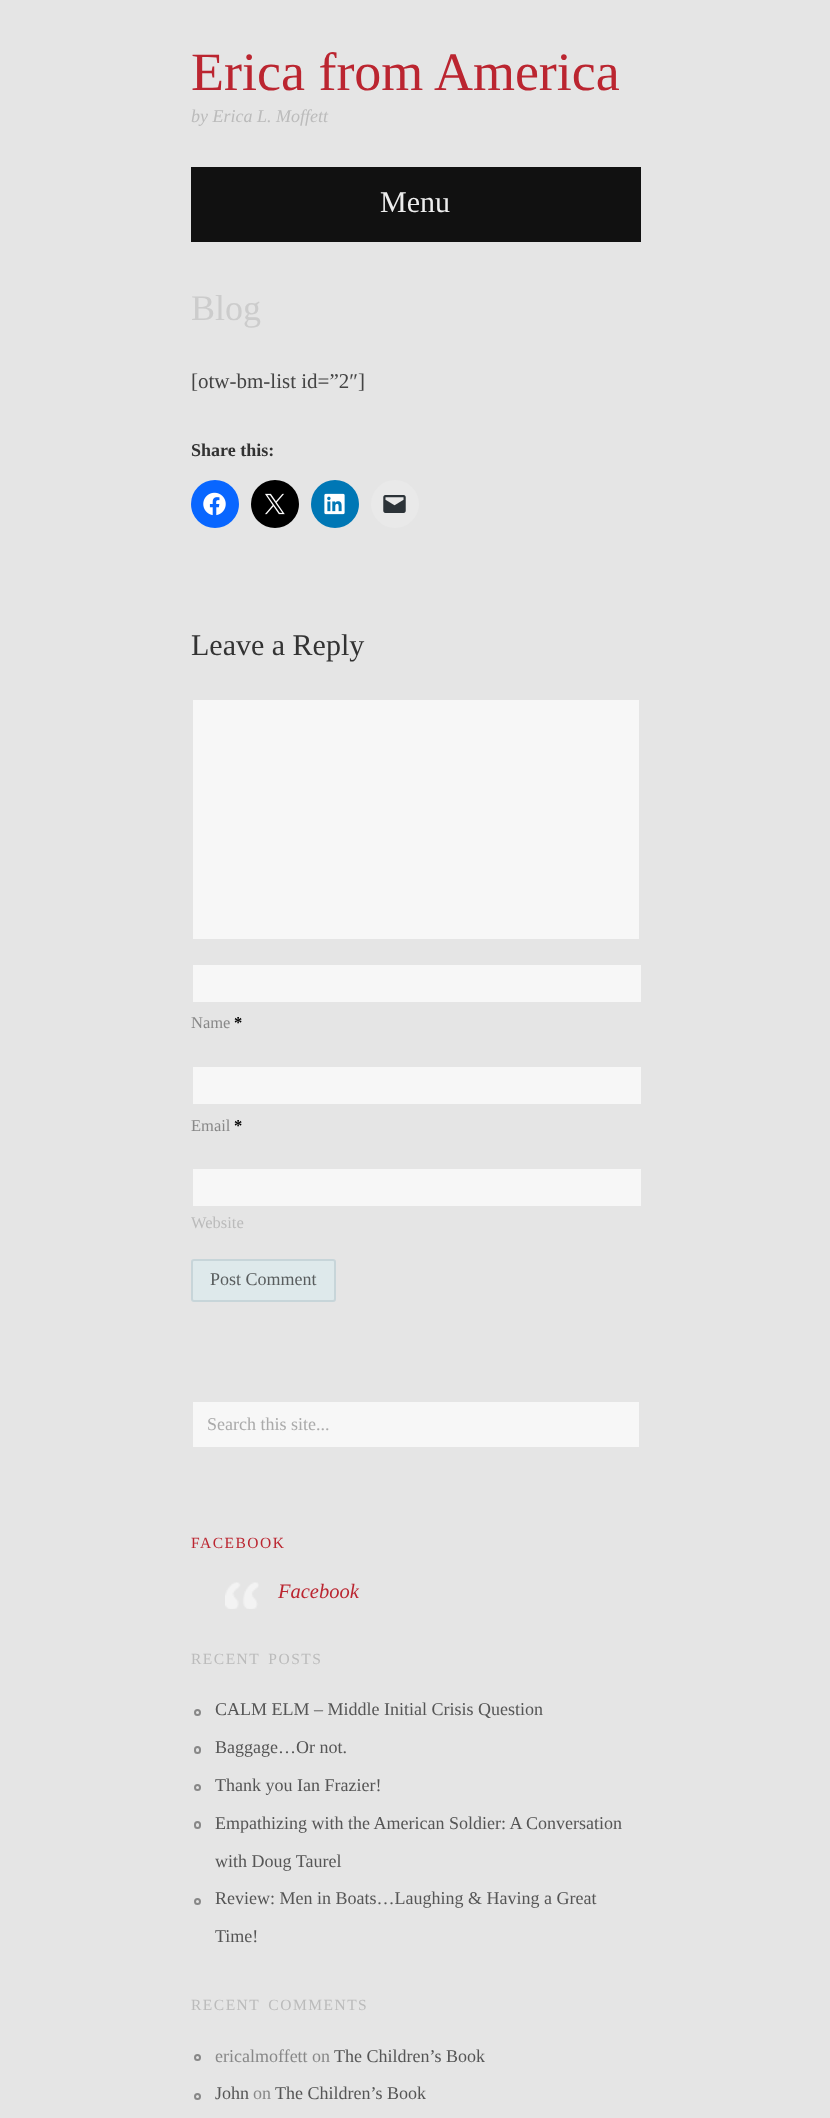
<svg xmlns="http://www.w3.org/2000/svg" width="830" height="2118">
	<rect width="100%" height="100%" fill="#E5E5E5" />
	<text x="191" y="90" font-family="Liberation Serif" font-size="54" fill="#BB2530">Erica from America</text>
	<text x="191" y="122" font-family="Liberation Serif" font-size="18" font-style="italic" fill="#BBBBBB">by Erica L. Moffett</text>
	<rect x="191" y="167" width="450" height="75" fill="#111111" />
	<text x="380" y="212" font-family="Liberation Serif" font-size="30" fill="#EEEEEE">Menu</text>
	<text x="191" y="320" font-family="Liberation Serif" font-size="36" fill="#CCCCCC">Blog</text>
	<text x="191" y="388" font-family="Liberation Serif" font-size="21" fill="#444444">[otw-bm-list id=”2″]</text>
	<text x="191" y="456" font-family="Liberation Serif" font-size="18" font-weight="700" fill="#333333">Share this:</text>
	<circle cx="215" cy="504" r="24" fill="#0866FF" />
	<image x="203" y="492" width="23" height="24" href="assets/img1.png" />
	<circle cx="275" cy="504" r="24" fill="#000000" />
	<image x="265" y="493" width="20" height="22" href="assets/img2.png" />
	<circle cx="335" cy="504" r="24" fill="#0077B5" />
	<image x="324" y="493" width="21" height="22" href="assets/img3.png" />
	<circle cx="395" cy="504" r="24" fill="#E9E9E9" />
	<image x="383" y="495" width="23" height="18" href="assets/img4.png" />
	<text x="191" y="655" font-family="Liberation Serif" font-size="30" fill="#333333">Leave a Reply</text>
	<rect x="193" y="700" width="446" height="239" fill="#F7F7F7" />
	<rect x="193" y="965" width="448" height="37" fill="#F7F7F7" />
	<text x="191" y="1028" font-family="Liberation Serif" font-size="16.5" fill="#888888">Name</text>
	<text x="234" y="1028" font-family="Liberation Serif" font-size="16.5" font-weight="700" fill="#000000">*</text>
	<rect x="193" y="1067" width="448" height="37" fill="#F7F7F7" />
	<text x="191" y="1131" font-family="Liberation Serif" font-size="16.5" fill="#888888">Email</text>
	<text x="234" y="1131" font-family="Liberation Serif" font-size="16.5" font-weight="700" fill="#000000">*</text>
	<rect x="193" y="1169" width="448" height="37" fill="#F7F7F7" />
	<text x="191" y="1228" font-family="Liberation Serif" font-size="16.5" fill="#BBBBBB">Website</text>
	<rect x="192" y="1260" width="143" height="41" rx="2" fill="#DEE9EB" stroke="#C7D5D9" stroke-width="2" />
	<text x="210" y="1285" font-family="Liberation Serif" font-size="18" fill="#595D5E">Post Comment</text>
	<rect x="193" y="1402" width="446" height="45" fill="#F7F7F7" />
	<text x="207" y="1430" font-family="Liberation Serif" font-size="18" fill="#AAAAAA">Search this site...</text>
	<text x="191" y="1548" font-family="Liberation Serif" font-size="15.5" letter-spacing="1.5" fill="#BB2530">FACEBOOK</text>
	<image x="225" y="1582" width="34" height="27" href="assets/img5.png" />
	<text x="278" y="1598" font-family="Liberation Serif" font-size="20.5" font-style="italic" fill="#BB2530">Facebook</text>
	<text x="191" y="1664" word-spacing="3" font-family="Liberation Serif" font-size="15.5" letter-spacing="1.5" fill="#BBBBBB">RECENT POSTS</text>
	<circle cx="197.5" cy="1712.5" r="2.5" fill="none" stroke="#888888" stroke-width="2" />
	<text x="215" y="1715" font-family="Liberation Serif" font-size="18" fill="#555555">CALM ELM – Middle Initial Crisis Question</text>
	<rect x="195" y="1747" width="5" height="6" rx="2.5" fill="none" stroke="#888888" stroke-width="2" />
	<text x="215" y="1753" font-family="Liberation Serif" font-size="18" fill="#555555">Baggage…Or not.</text>
	<circle cx="197.5" cy="1787.5" r="2.5" fill="none" stroke="#888888" stroke-width="2" />
	<text x="215" y="1791" font-family="Liberation Serif" font-size="18" fill="#555555">Thank you Ian Frazier!</text>
	<rect x="195" y="1822" width="5" height="6" rx="2.5" fill="none" stroke="#888888" stroke-width="2" />
	<g font-family="Liberation Serif" font-size="18" fill="#555555">
		<text x="215" y="1829">Empathizing with the American Soldier: A Conversation</text>
		<text x="215" y="1867">with Doug Taurel</text>
	</g>
	<circle cx="197.5" cy="1901.5" r="2.5" fill="none" stroke="#888888" stroke-width="2" />
	<g font-family="Liberation Serif" font-size="18" fill="#555555">
		<text x="215" y="1904">Review: Men in Boats…Laughing &amp; Having a Great</text>
		<text x="215" y="1942">Time!</text>
	</g>
	<text x="191" y="2010" word-spacing="3" font-family="Liberation Serif" font-size="15.5" letter-spacing="1.5" fill="#BBBBBB">RECENT COMMENTS</text>
	<circle cx="197.5" cy="2057.5" r="2.5" fill="none" stroke="#888888" stroke-width="2" />
	<text x="215" y="2062" font-family="Liberation Serif" font-size="18" fill="#888888">ericalmoffett on</text>
	<text x="334" y="2062" font-family="Liberation Serif" font-size="18" fill="#555555">The Children’s Book</text>
	<circle cx="197.5" cy="2096.5" r="2.5" fill="none" stroke="#888888" stroke-width="2" />
	<text x="215" y="2099" font-family="Liberation Serif" font-size="18" fill="#555555">John</text>
	<text x="253" y="2099" font-family="Liberation Serif" font-size="18" fill="#888888">on</text>
	<text x="275" y="2099" font-family="Liberation Serif" font-size="18" fill="#555555">The Children’s Book</text>
</svg>
